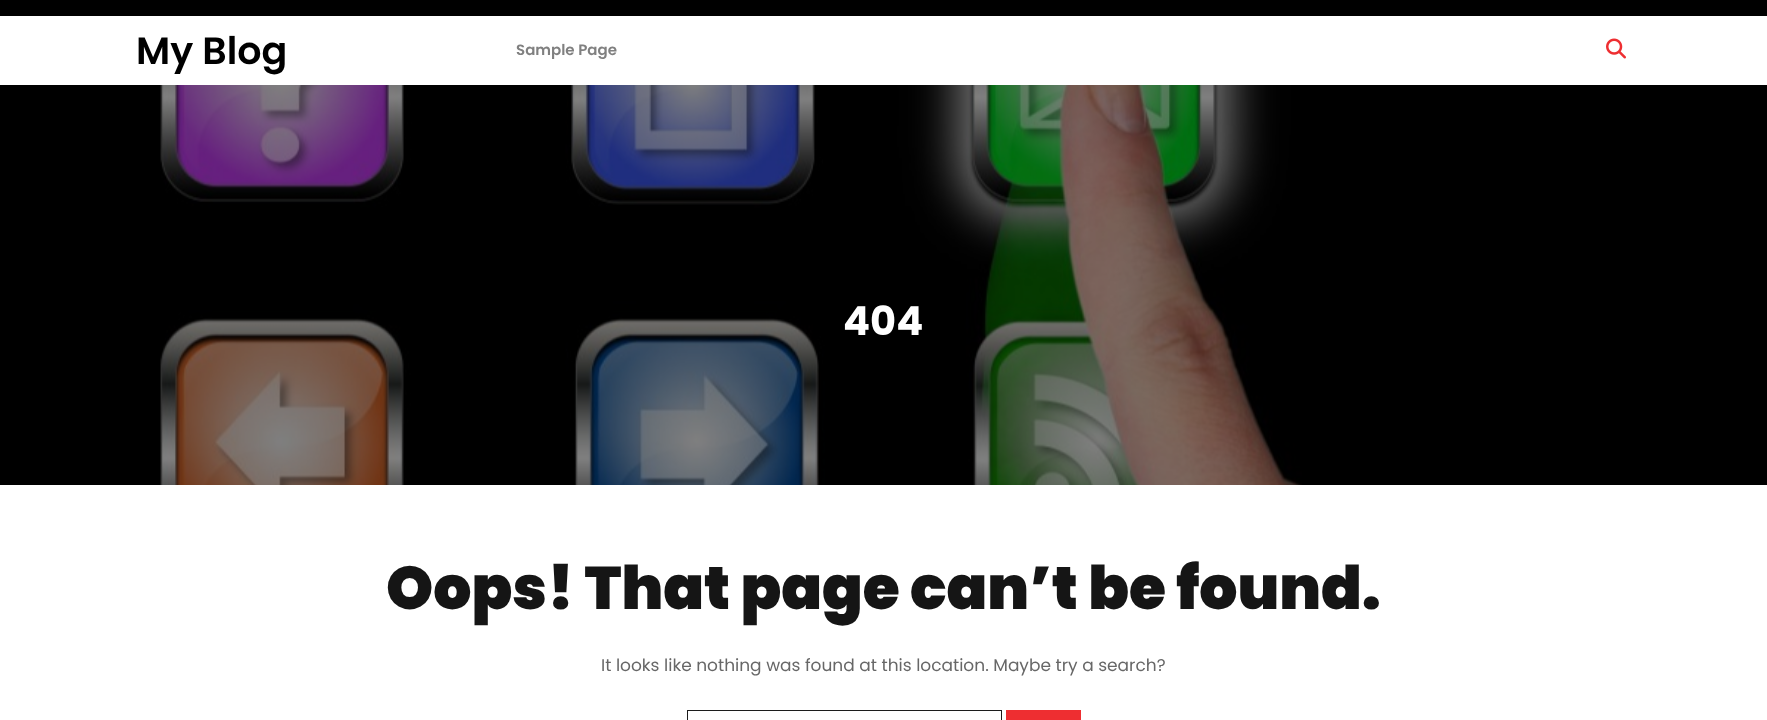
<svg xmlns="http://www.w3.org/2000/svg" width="1767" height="720">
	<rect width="100%" height="100%" fill="#FFFFFF" />
	<rect x="0" y="0" width="1767" height="16" fill="#000000" />
	<text x="136" y="64" font-family="Poppins" font-size="38" font-weight="600" fill="#000000">My Blog</text>
	<text x="516" y="55" font-family="Poppins" font-size="15" font-weight="600" fill="#808080">Sample Page</text>
	<image x="1606" y="38" width="20" height="21" href="assets/img1.png" />
	<rect x="0" y="85" width="1767" height="400" fill="#000000" />
	<image x="160" y="85" width="1142" height="400" href="assets/img2.png" />
	<text x="843" y="335" font-family="Poppins" font-size="40" font-weight="700" fill="#FFFFFF">404</text>
	<text x="386" y="609" font-family="Poppins" font-size="60" font-weight="900" fill="#151515">Oops! That page can’t be found.</text>
	<text x="601" y="671" font-family="Poppins" font-size="17" fill="#676767">It looks like nothing was found at this location. Maybe try a search?</text>
	<rect x="687.5" y="710.5" width="314" height="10" fill="none" stroke="#1C1C1C" />
	<rect x="1006" y="710" width="75" height="10" fill="#EE2E31" />
</svg>
